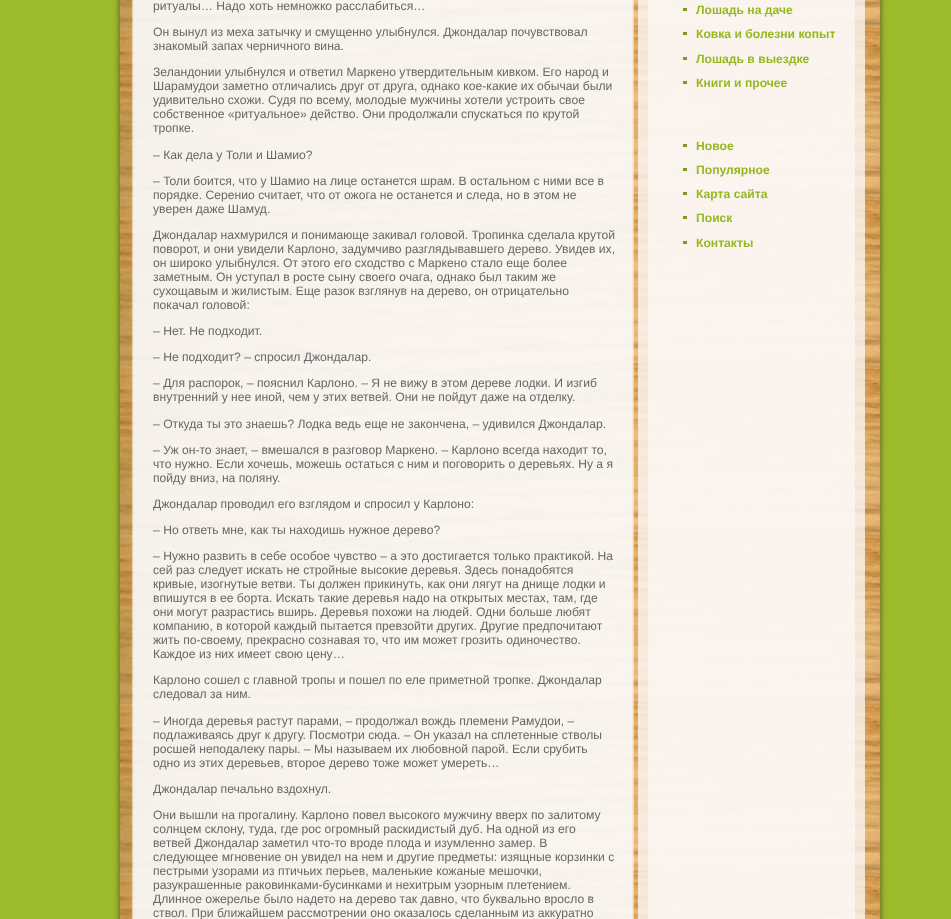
<svg xmlns="http://www.w3.org/2000/svg" width="951" height="919">
	<rect width="100%" height="100%" fill="#9DBA2C" />
	<image x="113" y="0" width="774" height="919" href="assets/img1.png" />
	<g font-family="Liberation Sans" font-size="12.15" fill="#666666">
		<text x="153" y="10">ритуалы… Надо хоть немножко расслабиться…</text>
		<text x="153" y="36">Он вынул из меха затычку и смущенно улыбнулся. Джондалар почувствовал</text>
		<text x="153" y="50">знакомый запах черничного вина.</text>
		<text x="153" y="76">Зеландонии улыбнулся и ответил Маркено утвердительным кивком. Его народ и</text>
		<text x="153" y="90">Шарамудои заметно отличались друг от друга, однако кое-какие их обычаи были</text>
		<text x="153" y="104">удивительно схожи. Судя по всему, молодые мужчины хотели устроить свое</text>
		<text x="153" y="118">собственное «ритуальное» действо. Они продолжали спускаться по крутой</text>
		<text x="153" y="132">тропке.</text>
		<text x="153" y="159">– Как дела у Толи и Шамио?</text>
		<text x="153" y="185">– Толи боится, что у Шамио на лице останется шрам. В остальном с ними все в</text>
		<text x="153" y="199">порядке. Серенио считает, что от ожога не останется и следа, но в этом не</text>
		<text x="153" y="213">уверен даже Шамуд.</text>
		<text x="153" y="239">Джондалар нахмурился и понимающе закивал головой. Тропинка сделала крутой</text>
		<text x="153" y="253">поворот, и они увидели Карлоно, задумчиво разглядывавшего дерево. Увидев их,</text>
		<text x="153" y="267">он широко улыбнулся. От этого его сходство с Маркено стало еще более</text>
		<text x="153" y="281">заметным. Он уступал в росте сыну своего очага, однако был таким же</text>
		<text x="153" y="295">сухощавым и жилистым. Еще разок взглянув на дерево, он отрицательно</text>
		<text x="153" y="309">покачал головой:</text>
		<text x="153" y="335">– Нет. Не подходит.</text>
		<text x="153" y="361">– Не подходит? – спросил Джондалар.</text>
		<text x="153" y="387">– Для распорок, – пояснил Карлоно. – Я не вижу в этом дереве лодки. И изгиб</text>
		<text x="153" y="401">внутренний у нее иной, чем у этих ветвей. Они не пойдут даже на отделку.</text>
		<text x="153" y="428">– Откуда ты это знаешь? Лодка ведь еще не закончена, – удивился Джондалар.</text>
		<text x="153" y="454">– Уж он-то знает, – вмешался в разговор Маркено. – Карлоно всегда находит то,</text>
		<text x="153" y="468">что нужно. Если хочешь, можешь остаться с ним и поговорить о деревьях. Ну а я</text>
		<text x="153" y="482">пойду вниз, на поляну.</text>
		<text x="153" y="508">Джондалар проводил его взглядом и спросил у Карлоно:</text>
		<text x="153" y="534">– Но ответь мне, как ты находишь нужное дерево?</text>
		<text x="153" y="560">– Нужно развить в себе особое чувство – а это достигается только практикой. На</text>
		<text x="153" y="574">сей раз следует искать не стройные высокие деревья. Здесь понадобятся</text>
		<text x="153" y="588">кривые, изогнутые ветви. Ты должен прикинуть, как они лягут на днище лодки и</text>
		<text x="153" y="602">впишутся в ее борта. Искать такие деревья надо на открытых местах, там, где</text>
		<text x="153" y="616">они могут разрастись вширь. Деревья похожи на людей. Одни больше любят</text>
		<text x="153" y="630">компанию, в которой каждый пытается превзойти других. Другие предпочитают</text>
		<text x="153" y="644">жить по-своему, прекрасно сознавая то, что им может грозить одиночество.</text>
		<text x="153" y="658">Каждое из них имеет свою цену…</text>
		<text x="153" y="684">Карлоно сошел с главной тропы и пошел по еле приметной тропке. Джондалар</text>
		<text x="153" y="698">следовал за ним.</text>
		<text x="153" y="725">– Иногда деревья растут парами, – продолжал вождь племени Рамудои, –</text>
		<text x="153" y="739">подлаживаясь друг к другу. Посмотри сюда. – Он указал на сплетенные стволы</text>
		<text x="153" y="753">росшей неподалеку пары. – Мы называем их любовной парой. Если срубить</text>
		<text x="153" y="767">одно из этих деревьев, второе дерево тоже может умереть…</text>
		<text x="153" y="793">Джондалар печально вздохнул.</text>
		<text x="153" y="819">Они вышли на прогалину. Карлоно повел высокого мужчину вверх по залитому</text>
		<text x="153" y="833">солнцем склону, туда, где рос огромный раскидистый дуб. На одной из его</text>
		<text x="153" y="847">ветвей Джондалар заметил что-то вроде плода и изумленно замер. В</text>
		<text x="153" y="861">следующее мгновение он увидел на нем и другие предметы: изящные корзинки с</text>
		<text x="153" y="875">пестрыми узорами из птичьих перьев, маленькие кожаные мешочки,</text>
		<text x="153" y="889">разукрашенные раковинками-бусинками и нехитрым узорным плетением.</text>
		<text x="153" y="903">Длинное ожерелье было надето на дерево так давно, что буквально вросло в</text>
		<text x="153" y="917">ствол. При ближайшем рассмотрении оно оказалось сделанным из аккуратно</text>
	</g>
	<rect x="683" y="8" width="4" height="3" fill="#7C9827" />
	<text x="696" y="14" font-family="Liberation Sans" font-size="12.15" font-weight="700" fill="#96B81F">Лошадь на даче</text>
	<rect x="683" y="32" width="4" height="3" fill="#7C9827" />
	<text x="696" y="38" font-family="Liberation Sans" font-size="12.15" font-weight="700" fill="#96B81F">Ковка и болезни копыт</text>
	<rect x="683" y="57" width="4" height="3" fill="#7C9827" />
	<text x="696" y="63" font-family="Liberation Sans" font-size="12.15" font-weight="700" fill="#96B81F">Лошадь в выездке</text>
	<rect x="683" y="81" width="4" height="3" fill="#7C9827" />
	<text x="696" y="87" font-family="Liberation Sans" font-size="12.15" font-weight="700" fill="#96B81F">Книги и прочее</text>
	<rect x="683" y="144" width="4" height="3" fill="#7C9827" />
	<text x="696" y="150" font-family="Liberation Sans" font-size="12.15" font-weight="700" fill="#96B81F">Новое</text>
	<rect x="683" y="168" width="4" height="3" fill="#7C9827" />
	<text x="696" y="174" font-family="Liberation Sans" font-size="12.15" font-weight="700" fill="#96B81F">Популярное</text>
	<rect x="683" y="192" width="4" height="3" fill="#7C9827" />
	<text x="696" y="198" font-family="Liberation Sans" font-size="12.15" font-weight="700" fill="#96B81F">Карта сайта</text>
	<rect x="683" y="216" width="4" height="3" fill="#7C9827" />
	<text x="696" y="222" font-family="Liberation Sans" font-size="12.15" font-weight="700" fill="#96B81F">Поиск</text>
	<rect x="683" y="241" width="4" height="3" fill="#7C9827" />
	<text x="696" y="247" font-family="Liberation Sans" font-size="12.15" font-weight="700" fill="#96B81F">Контакты</text>
</svg>
